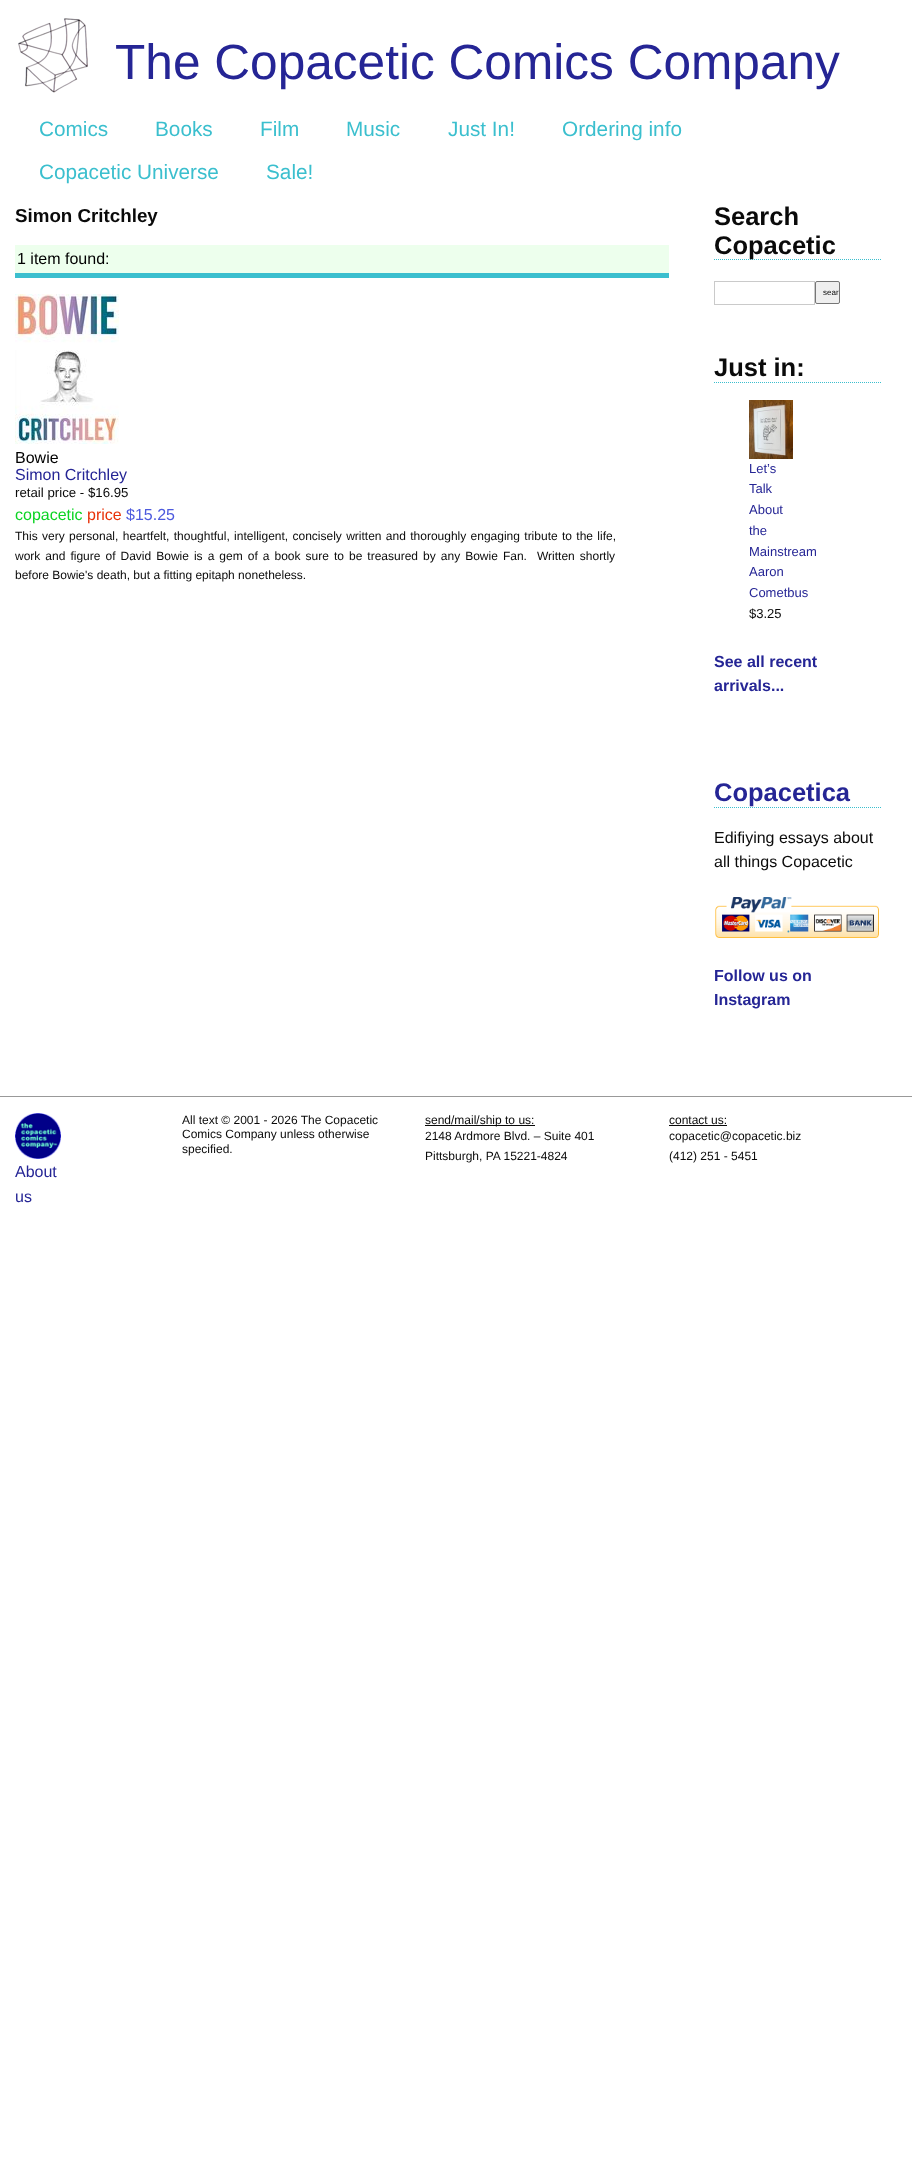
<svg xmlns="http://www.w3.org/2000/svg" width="922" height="2181">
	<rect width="100%" height="100%" fill="#FFFFFF" />
	<image x="18" y="18" width="70" height="75" href="assets/img1.png" />
	<text x="115" y="79" font-family="Liberation Sans" font-size="49.6" fill="#252595">The Copacetic Comics Company</text>
	<g font-family="Liberation Sans" font-size="20.75" fill="#3BBFCE">
		<text x="39" y="136">Comics</text>
		<text x="155" y="136">Books</text>
		<text x="260" y="136">Film</text>
		<text x="346" y="136">Music</text>
		<text x="448" y="136">Just In!</text>
		<text x="562" y="136">Ordering info</text>
		<text x="39" y="179">Copacetic Universe</text>
		<text x="266" y="179">Sale!</text>
	</g>
	<text x="15" y="222" font-family="Liberation Sans" font-size="18.75" font-weight="700" fill="#0A0A0A">Simon Critchley</text>
	<rect x="15" y="245" width="654" height="28" fill="#EDFFED" />
	<rect x="15" y="273" width="654" height="5" fill="#3BBFCE" />
	<text x="17" y="264" font-family="Liberation Sans" font-size="16" fill="#000000">1 item found:</text>
	<image x="15" y="294" width="104" height="150" href="assets/img2.png" />
	<text x="15" y="463" font-family="Liberation Sans" font-size="16" fill="#000000">Bowie</text>
	<text x="15" y="480" font-family="Liberation Sans" font-size="16" fill="#252595">Simon Critchley</text>
	<text x="15" y="497" font-family="Liberation Sans" font-size="13.25" fill="#0A0A0A">retail price - $16.95</text>
	<text x="15" y="520" font-family="Liberation Sans" font-size="16" fill="#0CD424">copacetic</text>
	<text x="87" y="520" font-family="Liberation Sans" font-size="16" fill="#E83209">price</text>
	<text x="126" y="520" font-family="Liberation Sans" font-size="16" fill="#4D5ADE">$15.25</text>
	<g font-family="Liberation Sans" font-size="12" fill="#0A0A0A">
		<text x="15" y="540" word-spacing="1">This very personal, heartfelt, thoughtful, intelligent, concisely written and thoroughly engaging tribute to the life,</text>
		<text x="15" y="560" word-spacing="1.7" xml:space="preserve">work and figure of David Bowie is a gem of a book sure to be treasured by any Bowie Fan.  Written shortly</text>
		<text x="15" y="579">before Bowie's death, but a fitting epitaph nonetheless.</text>
	</g>
	<path d="M714 259.5H882" fill="none" stroke="#3BBFCE" stroke-dasharray="1 1" />
	<g font-family="Liberation Sans" font-size="25.5" font-weight="700" fill="#0A0A0A">
		<text x="714" y="225">Search</text>
		<text x="714" y="254">Copacetic</text>
	</g>
	<rect x="714.5" y="281.5" width="100" height="23" fill="none" stroke="#CACACA" />
	<rect x="815.5" y="281.5" width="24" height="22" rx="1.5" fill="#EFEFEF" stroke="#767676" />
	<text x="823" y="295" font-family="Liberation Sans" font-size="8" fill="#0A0A0A">sear</text>
	<path d="M714 382.5H882" fill="none" stroke="#3BBFCE" stroke-dasharray="1 1" />
	<text x="714" y="376" font-family="Liberation Sans" font-size="25.5" font-weight="700" fill="#0A0A0A">Just in:</text>
	<image x="749" y="400" width="44" height="59" href="assets/img3.png" />
	<g font-family="Liberation Sans" font-size="13" fill="#252595">
		<text x="749" y="473">Let’s</text>
		<text x="749" y="493">Talk</text>
		<text x="749" y="514">About</text>
		<text x="749" y="535">the</text>
		<text x="749" y="556">Mainstream</text>
		<text x="749" y="576">Aaron</text>
		<text x="749" y="597">Cometbus</text>
	</g>
	<text x="749" y="618" font-family="Liberation Sans" font-size="13" fill="#0A0A0A">$3.25</text>
	<g font-family="Liberation Sans" font-size="16" font-weight="700" fill="#252595">
		<text x="714" y="667">See all recent</text>
		<text x="714" y="691">arrivals...</text>
	</g>
	<path d="M714 807.5H882" fill="none" stroke="#3BBFCE" stroke-dasharray="1 1" />
	<text x="714" y="801" font-family="Liberation Sans" font-size="25.5" font-weight="700" fill="#252595">Copacetica</text>
	<g font-family="Liberation Sans" font-size="16" fill="#0A0A0A">
		<text x="714" y="843">Edifiying essays about</text>
		<text x="714" y="867">all things Copacetic</text>
	</g>
	<image x="715" y="897" width="164" height="41" href="assets/img4.png" />
	<g font-family="Liberation Sans" font-size="16" font-weight="700" fill="#252595">
		<text x="714" y="981">Follow us on</text>
		<text x="714" y="1005">Instagram</text>
	</g>
	<rect x="0" y="1096" width="912" height="1" fill="#999999" />
	<g font-family="Liberation Sans" font-size="12" fill="#0A0A0A">
		<text x="182" y="1124">All text © 2001 - 2026 The Copacetic</text>
		<text x="182" y="1138">Comics Company unless otherwise</text>
		<text x="182" y="1153">specified.</text>
	</g>
	<rect x="425" y="1125" width="110" height="1" fill="#0A0A0A" />
	<g font-family="Liberation Sans" font-size="12" fill="#0A0A0A">
		<text x="425" y="1124">send/mail/ship to us:</text>
		<text x="425" y="1140">2148 Ardmore Blvd. – Suite 401</text>
		<text x="425" y="1160">Pittsburgh, PA 15221-4824</text>
		<text x="669" y="1124">contact us:</text>
	</g>
	<rect x="669" y="1125" width="58" height="1" fill="#0A0A0A" />
	<g font-family="Liberation Sans" font-size="12" fill="#0A0A0A">
		<text x="669" y="1140">copacetic@copacetic.biz</text>
		<text x="669" y="1160">(412) 251 - 5451</text>
	</g>
	<image x="15" y="1113" width="46" height="46" href="assets/img5.png" />
	<g font-family="Liberation Sans" font-size="16" fill="#252595">
		<text x="15" y="1177">About</text>
		<text x="15" y="1202">us</text>
	</g>
</svg>
